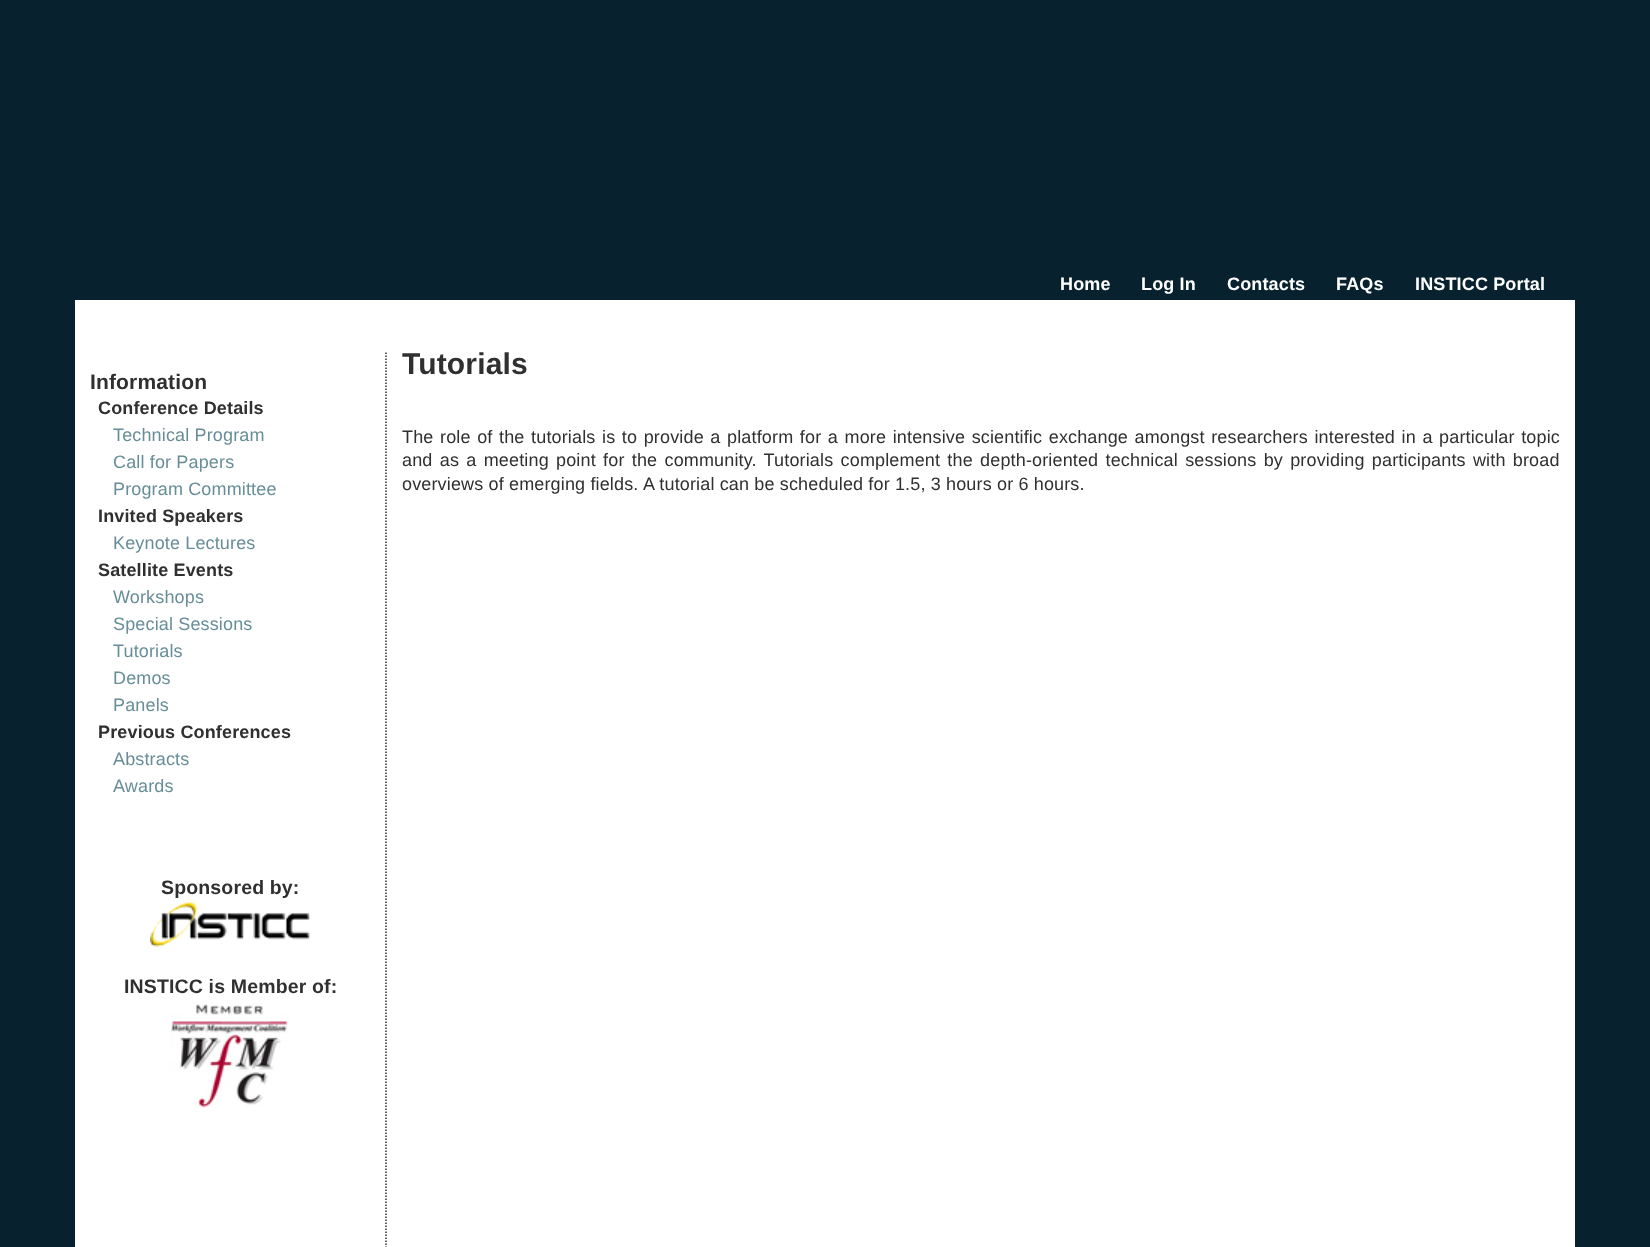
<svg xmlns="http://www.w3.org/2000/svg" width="1650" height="1247">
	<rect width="100%" height="100%" fill="#07222E" />
	<g font-family="Liberation Sans" font-size="18" font-weight="700" letter-spacing="0.15" fill="#FFFFFF">
		<text x="1060" y="290">Home</text>
		<text x="1141" y="290">Log In</text>
		<text x="1227" y="290">Contacts</text>
		<text x="1336" y="290">FAQs</text>
		<text x="1415" y="290">INSTICC Portal</text>
	</g>
	<rect x="75" y="300" width="1500" height="947" fill="#FFFFFF" />
	<text x="90" y="389" font-family="Liberation Sans" font-size="21" font-weight="700" letter-spacing="0.15" fill="#303030">Information</text>
	<text x="98" y="414" font-family="Liberation Sans" font-size="18" font-weight="700" letter-spacing="0.15" fill="#303030">Conference Details</text>
	<g font-family="Liberation Sans" font-size="18" letter-spacing="0.15" fill="#678E98">
		<text x="113" y="441">Technical Program</text>
		<text x="113" y="468">Call for Papers</text>
		<text x="113" y="495">Program Committee</text>
	</g>
	<text x="98" y="522" font-family="Liberation Sans" font-size="18" font-weight="700" letter-spacing="0.15" fill="#303030">Invited Speakers</text>
	<text x="113" y="549" font-family="Liberation Sans" font-size="18" letter-spacing="0.15" fill="#678E98">Keynote Lectures</text>
	<text x="98" y="576" font-family="Liberation Sans" font-size="18" font-weight="700" letter-spacing="0.15" fill="#303030">Satellite Events</text>
	<g font-family="Liberation Sans" font-size="18" letter-spacing="0.15" fill="#678E98">
		<text x="113" y="603">Workshops</text>
		<text x="113" y="630">Special Sessions</text>
		<text x="113" y="657">Tutorials</text>
		<text x="113" y="684">Demos</text>
		<text x="113" y="711">Panels</text>
	</g>
	<text x="98" y="738" font-family="Liberation Sans" font-size="18" font-weight="700" letter-spacing="0.15" fill="#303030">Previous Conferences</text>
	<g font-family="Liberation Sans" font-size="18" letter-spacing="0.15" fill="#678E98">
		<text x="113" y="765">Abstracts</text>
		<text x="113" y="792">Awards</text>
	</g>
	<text x="161" y="894" font-family="Liberation Sans" font-size="19.5" font-weight="700" letter-spacing="0.15" fill="#303030">Sponsored by:</text>
	<image x="150" y="901" width="161" height="46" href="assets/img1.png" />
	<text x="124" y="993" font-family="Liberation Sans" font-size="19.5" font-weight="700" letter-spacing="0.15" fill="#303030">INSTICC is Member of:</text>
	<image x="170" y="1004" width="119" height="104" href="assets/img2.png" />
	<path d="M386 352.5V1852.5" fill="none" stroke="#303030" stroke-width="1.5" stroke-dasharray="1.5 1.5" />
	<text x="402" y="374" font-family="Liberation Sans" font-size="30" font-weight="700" letter-spacing="0.15" fill="#303030">Tutorials</text>
	<g font-family="Liberation Sans" font-size="18" letter-spacing="0.15" fill="#303030">
		<text x="402" y="443" word-spacing="1.4">The role of the tutorials is to provide a platform for a more intensive scientific exchange amongst researchers interested in a particular topic</text>
		<text x="402" y="466" word-spacing="2.1">and as a meeting point for the community. Tutorials complement the depth-oriented technical sessions by providing participants with broad</text>
		<text x="402" y="490">overviews of emerging fields.</text>
		<text x="643" y="490">A tutorial can be scheduled for 1.5, 3 hours or 6 hours.</text>
	</g>
</svg>
